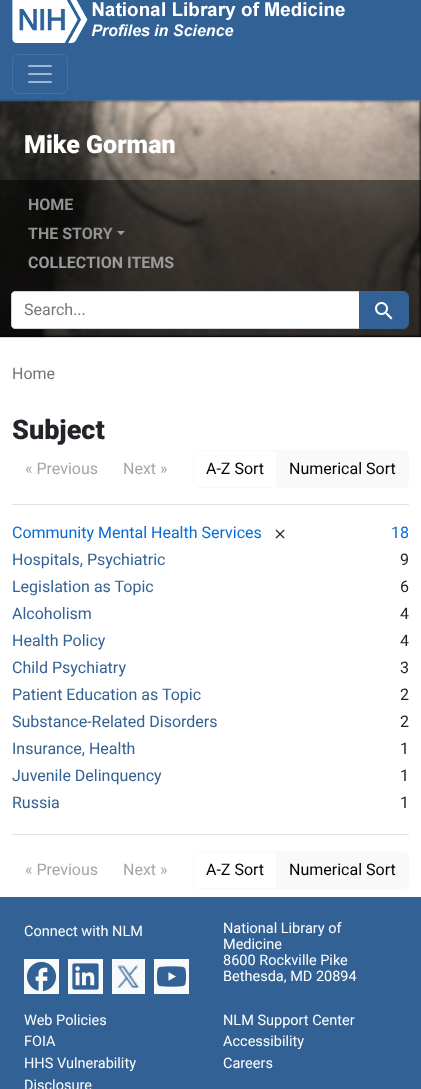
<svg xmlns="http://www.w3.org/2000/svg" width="421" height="1089">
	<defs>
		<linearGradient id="g1" gradientUnits="userSpaceOnUse" x1="210" y1="102" x2="211" y2="337"><stop offset="0" stop-color="#000000" stop-opacity="0" /><stop offset="0.5" stop-color="#000000" stop-opacity="0.4" /><stop offset="1" stop-color="#000000" stop-opacity="0.5" /></linearGradient>
	</defs>
	<rect width="100%" height="100%" fill="#FFFFFF" />
	<rect x="0" y="0" width="421" height="102" fill="#326295" />
	<image x="12" y="0" width="333" height="43" href="assets/img1.png" />
	<rect x="12.5" y="54.5" width="55" height="39" rx="5.5" fill="none" stroke="#4772A0" />
	<image x="28" y="65" width="24" height="18" href="assets/img2.png" />
	<rect x="0" y="102" width="421" height="235" fill="#000000" />
	<rect x="0" y="337" width="421" height="1" fill="#DEE2E6" />
	<image x="0" y="99" width="421" height="239" href="assets/img3.png" />
	<rect x="420" y="101" width="1" height="235" fill="#000000" filter="blur(1px)" />
	<rect x="0" y="107" width="421" height="230" fill="url(#g1)" />
	<text x="24" y="153" font-family="Roboto" font-size="25" font-weight="900" fill="#FFFFFF">Mike Gorman</text>
	<rect x="0" y="180" width="421" height="157" fill="#000000" fill-opacity="0.5" />
	<g font-family="Roboto" font-size="16" font-weight="700" fill="#929291">
		<text x="28" y="210">HOME</text>
		<text x="28" y="239">THE STORY</text>
	</g>
	<path d="M117 231H125L121 235Z" fill="#A2A09E" />
	<text x="28" y="268" font-family="Roboto" font-size="16" font-weight="700" fill="#9C9B9A">COLLECTION ITEMS</text>
	<path d="M15 291.5H359.5V328.5H15C13 328.5 11.5 327 11.5 325V295C11.5 293 13 291.5 15 291.5Z" fill="#FFFFFF" stroke="#CED4DA" />
	<text x="24" y="315" font-family="Roboto" font-size="16" fill="#757575">Search...</text>
	<path d="M359.5 291.5H403C406 291.5 408.5 294 408.5 297V323C408.5 326 406 328.5 403 328.5H359.5Z" fill="#326295" stroke="#326295" />
	<image x="375" y="302" width="18" height="18" href="assets/img4.png" />
	<text x="12" y="379" font-family="Roboto" font-size="16" fill="#757575">Home</text>
	<text x="12" y="439" font-family="Roboto" font-size="27" font-weight="900" fill="#212529">Subject</text>
	<rect x="12" y="504" width="397" height="1" fill="#DEE2E6" />
	<g font-family="Roboto" font-size="16" fill="#A5A5A5">
		<text x="25" y="474">« Previous</text>
		<text x="123" y="474">Next »</text>
	</g>
	<path d="M199 450.5H276.5V487.5H199C196 487.5 193.5 485 193.5 482V456C193.5 453 196 450.5 199 450.5Z" fill="none" stroke="#F8F9FA" />
	<text x="206" y="474" font-family="Roboto" font-size="16" fill="#000000">A-Z Sort</text>
	<path d="M276 450H403C406.5 450 409 452.5 409 456V482C409 485.5 406.5 488 403 488H276Z" fill="#F8F9FA" />
	<text x="289" y="474" font-family="Roboto" font-size="16" fill="#000000">Numerical Sort</text>
	<text x="12" y="538" font-family="Roboto" font-size="16" fill="#056BD8">Community Mental Health Services</text>
	<image x="275" y="529" width="10" height="10" href="assets/img5.png" />
	<text x="391" y="538" font-family="Roboto" font-size="16" fill="#056BD8">18</text>
	<text x="12" y="565" font-family="Roboto" font-size="16" fill="#326295">Hospitals, Psychiatric</text>
	<text x="400" y="565" font-family="Roboto" font-size="16" fill="#212529">9</text>
	<text x="12" y="592" font-family="Roboto" font-size="16" fill="#326295">Legislation as Topic</text>
	<text x="400" y="592" font-family="Roboto" font-size="16" fill="#212529">6</text>
	<text x="12" y="619" font-family="Roboto" font-size="16" fill="#326295">Alcoholism</text>
	<text x="400" y="619" font-family="Roboto" font-size="16" fill="#212529">4</text>
	<text x="12" y="646" font-family="Roboto" font-size="16" fill="#326295">Health Policy</text>
	<text x="400" y="646" font-family="Roboto" font-size="16" fill="#212529">4</text>
	<text x="12" y="673" font-family="Roboto" font-size="16" fill="#326295">Child Psychiatry</text>
	<text x="400" y="673" font-family="Roboto" font-size="16" fill="#212529">3</text>
	<text x="12" y="700" font-family="Roboto" font-size="16" fill="#326295">Patient Education as Topic</text>
	<text x="400" y="700" font-family="Roboto" font-size="16" fill="#212529">2</text>
	<text x="12" y="727" font-family="Roboto" font-size="16" fill="#326295">Substance-Related Disorders</text>
	<text x="400" y="727" font-family="Roboto" font-size="16" fill="#212529">2</text>
	<text x="12" y="754" font-family="Roboto" font-size="16" fill="#326295">Insurance, Health</text>
	<text x="400" y="754" font-family="Roboto" font-size="16" fill="#212529">1</text>
	<text x="12" y="781" font-family="Roboto" font-size="16" fill="#326295">Juvenile Delinquency</text>
	<text x="400" y="781" font-family="Roboto" font-size="16" fill="#212529">1</text>
	<text x="12" y="808" font-family="Roboto" font-size="16" fill="#326295">Russia</text>
	<text x="400" y="808" font-family="Roboto" font-size="16" fill="#212529">1</text>
	<rect x="12" y="834" width="397" height="1" fill="#DEE2E6" />
	<g font-family="Roboto" font-size="16" fill="#A5A5A5">
		<text x="25" y="875">« Previous</text>
		<text x="123" y="875">Next »</text>
	</g>
	<path d="M199 851.5H276.5V888.5H199C196 888.5 193.5 886 193.5 883V857C193.5 854 196 851.5 199 851.5Z" fill="none" stroke="#F8F9FA" />
	<text x="206" y="875" font-family="Roboto" font-size="16" fill="#000000">A-Z Sort</text>
	<path d="M276 851H403C406.5 851 409 853.5 409 857V883C409 886.5 406.5 889 403 889H276Z" fill="#F8F9FA" />
	<text x="289" y="875" font-family="Roboto" font-size="16" fill="#000000">Numerical Sort</text>
	<rect x="0" y="897" width="421" height="192" fill="#326295" />
	<text x="24" y="936" font-family="Roboto" font-size="14.5" fill="#FFFFFF">Connect with NLM</text>
	<rect x="24" y="959" width="35" height="35" fill="#F8F9FA" />
	<image x="26" y="961" width="31" height="30" href="assets/img6.png" />
	<rect x="68" y="959" width="35" height="35" fill="#F8F9FA" />
	<image x="72" y="963" width="27" height="27" href="assets/img7.png" />
	<rect x="112" y="959" width="33" height="35" fill="#F8F9FA" />
	<image x="117" y="965" width="22" height="23" href="assets/img8.png" />
	<rect x="154" y="959" width="35" height="35" fill="#F8F9FA" />
	<image x="156" y="966" width="31" height="21" href="assets/img9.png" />
	<g font-family="Roboto" font-size="14.5" fill="#FFFFFF">
		<text x="223" y="933">National Library of</text>
		<text x="223" y="949">Medicine</text>
		<text x="223" y="965">8600 Rockville Pike</text>
		<text x="223" y="981">Bethesda, MD 20894</text>
		<text x="24" y="1025">Web Policies</text>
		<text x="24" y="1046">FOIA</text>
		<text x="24" y="1068">HHS Vulnerability</text>
		<text x="24" y="1090">Disclosure</text>
		<text x="223" y="1025">NLM Support Center</text>
		<text x="223" y="1046">Accessibility</text>
		<text x="223" y="1068">Careers</text>
	</g>
</svg>
